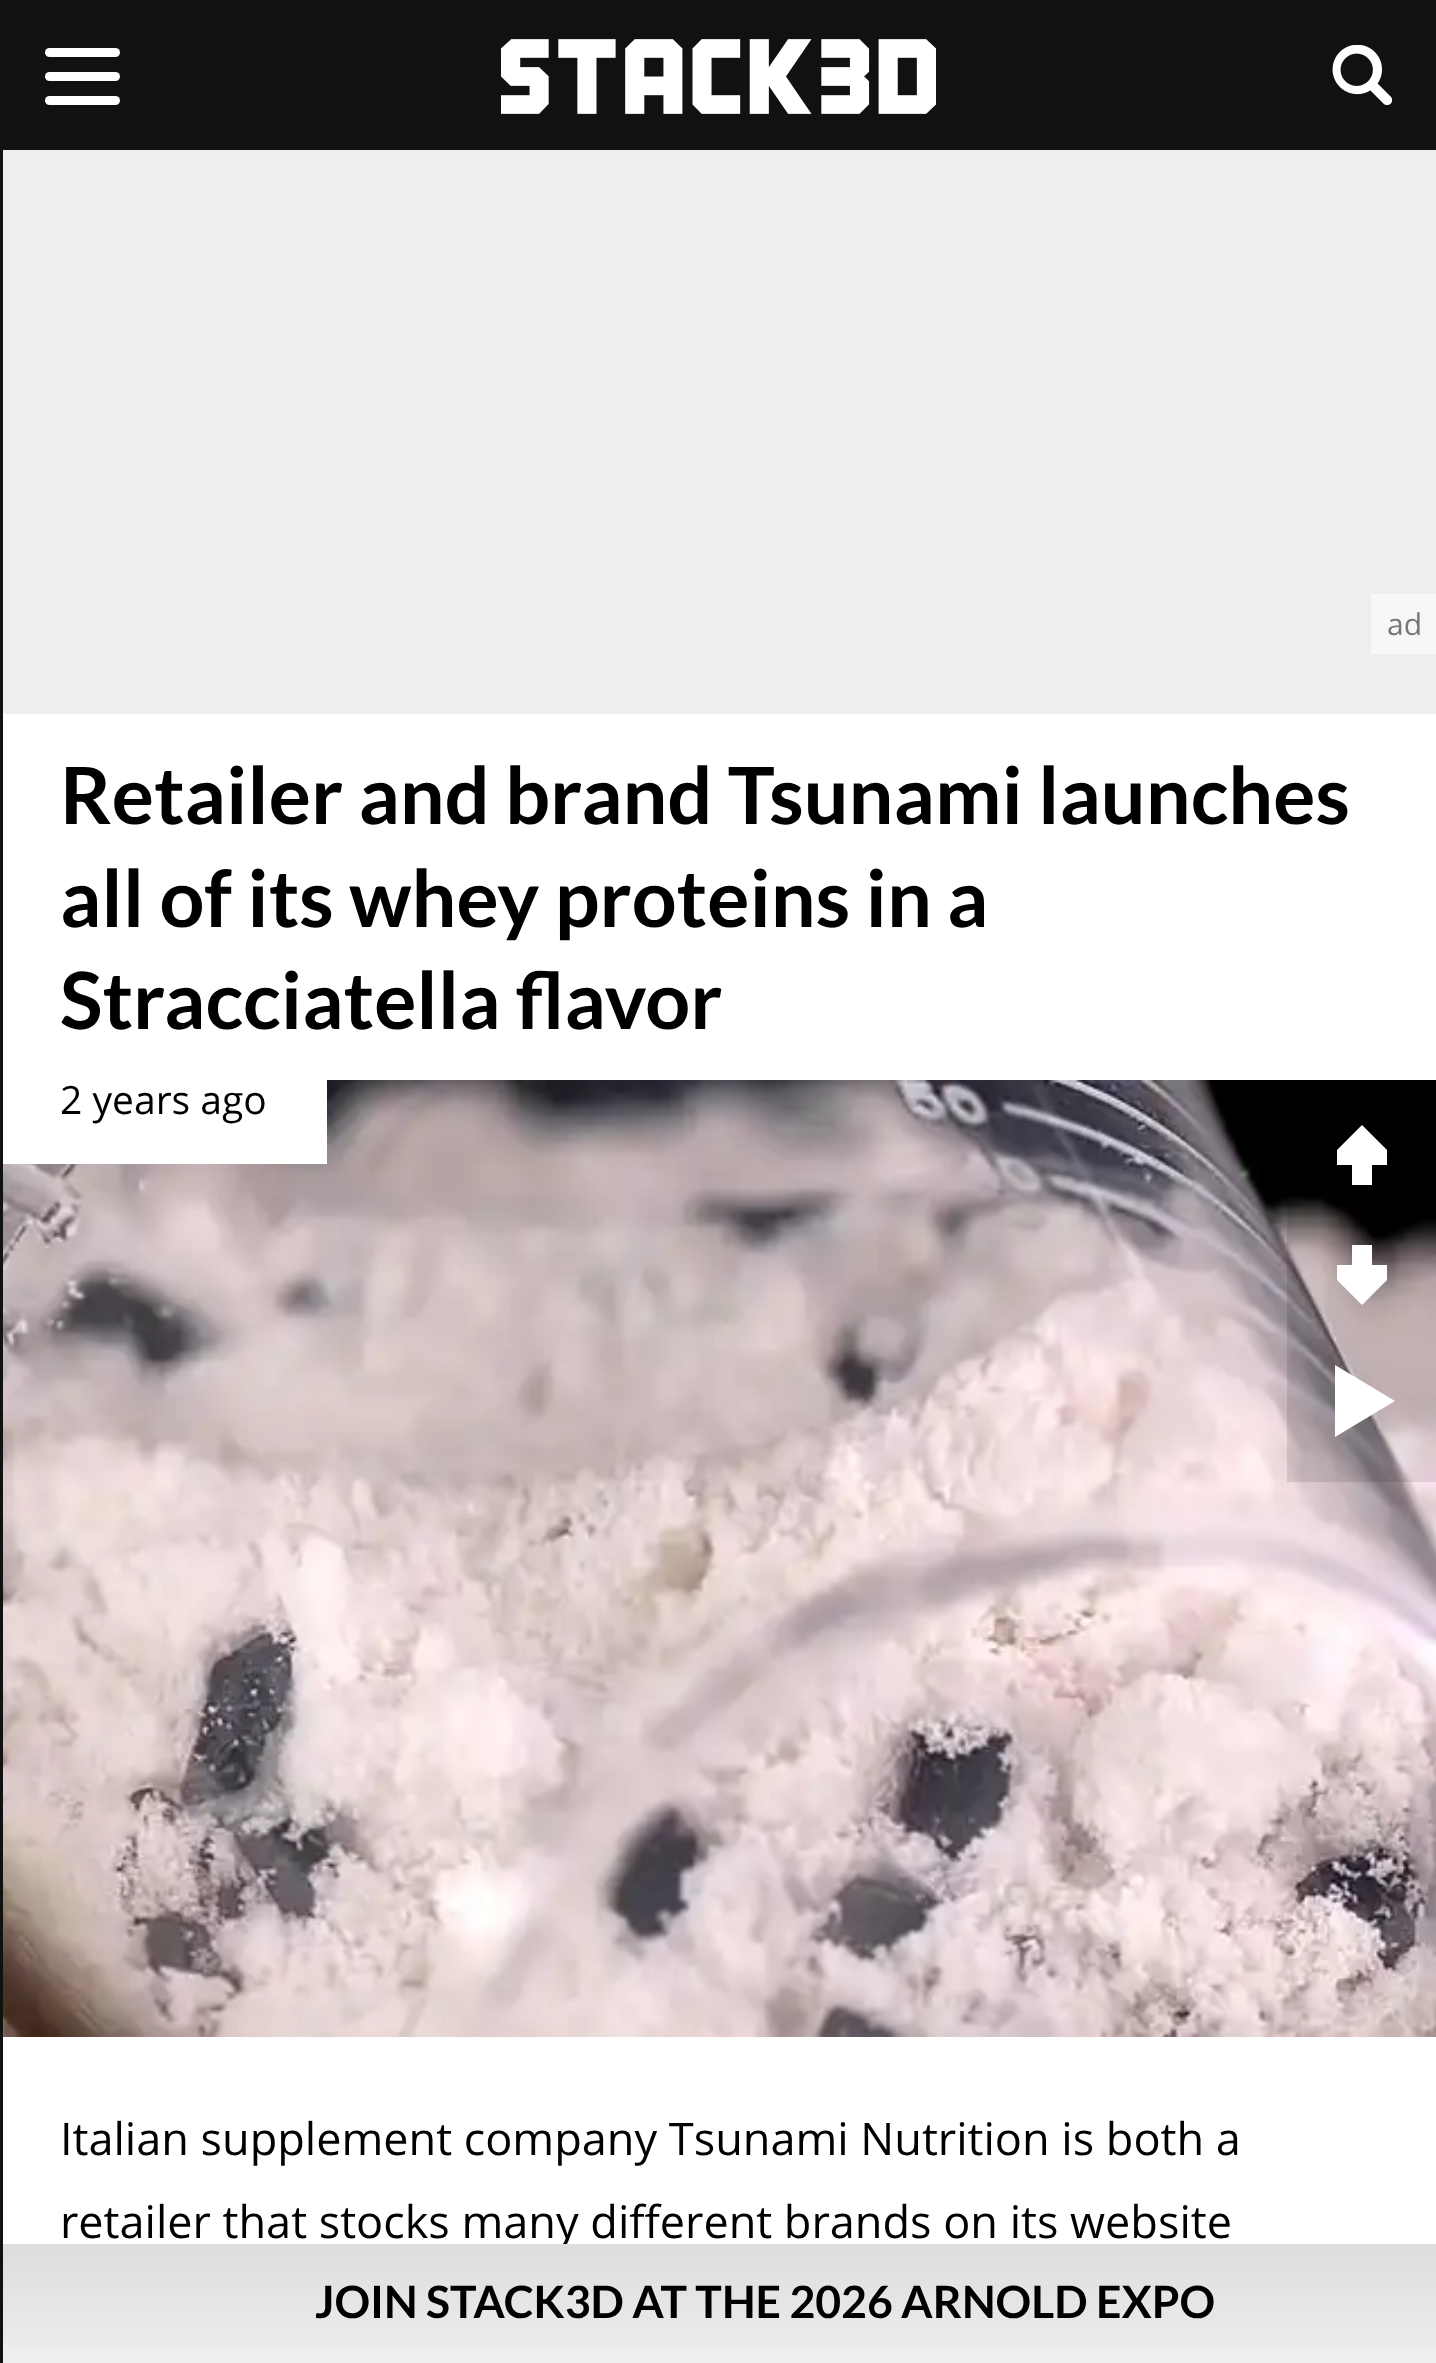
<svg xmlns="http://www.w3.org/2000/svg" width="1436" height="2363">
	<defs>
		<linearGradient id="g1" gradientUnits="userSpaceOnUse" x1="719" y1="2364" x2="719" y2="2244"><stop offset="0" stop-color="#EEEEEE" /><stop offset="1" stop-color="#DDDDDD" /></linearGradient>
	</defs>
	<rect width="100%" height="100%" fill="#EEEEEE" />
	<rect x="0" y="0" width="1436" height="150" fill="#111111" />
	<rect x="45" y="72" width="75" height="9" rx="4.5" fill="#FFFFFF" />
	<rect x="45" y="48" width="75" height="9" rx="4.5" fill="#FFFFFF" />
	<rect x="45" y="96" width="75" height="9" rx="4.5" fill="#FFFFFF" />
	<rect x="0" y="150" width="3" height="2213" fill="#111111" />
	<image x="501" y="39" width="435" height="75" href="assets/img1.png" />
	<image x="1332" y="45" width="60" height="60" href="assets/img2.png" />
	<rect x="1371" y="594" width="65" height="60" fill="#F7F7F7" />
	<text x="1387" y="635" font-family="Open Sans" font-size="30" fill="#777777">ad</text>
	<rect x="3" y="714" width="1433" height="366" fill="#FFFFFF" />
	<g font-family="Lato" font-size="79" font-weight="700" fill="#000000">
		<text x="60" y="824">Retailer and brand Tsunami launches</text>
		<text x="60" y="927">all of its whey proteins in a</text>
		<text x="60" y="1029">Stracciatella flavor</text>
	</g>
	<image x="3" y="1080" width="1433" height="957" href="assets/img3.png" />
	<rect x="3" y="1080" width="324" height="84" fill="#FFFFFF" />
	<text x="60" y="1114" font-family="Open Sans" font-size="39" fill="#000000">2 years ago</text>
	<rect x="1287" y="1202" width="149" height="280" fill="#000000" fill-opacity="0.1" />
	<path d="M1362 1125L1387 1150V1165H1372V1185H1352V1165H1337V1150Z" fill="#FFFFFF" />
	<path d="M1362 1305L1337 1280V1265H1352V1245H1372V1265H1387V1280Z" fill="#FFFFFF" />
	<path d="M1335 1437V1365L1395 1401Z" fill="#FFFFFF" />
	<rect x="3" y="2037" width="1433" height="207" fill="#FFFFFF" />
	<g font-family="Open Sans" font-size="45" fill="#000000">
		<text x="60" y="2155">Italian supplement company Tsunami Nutrition is both a</text>
		<text x="60" y="2238">retailer that stocks many different brands on its website</text>
	</g>
	<rect x="3" y="2244" width="1433" height="102" fill="url(#g1)" />
	<text x="315" y="2318" word-spacing="-0.25" font-family="Lato" font-size="44.55" font-weight="700" fill="#000000">JOIN STACK3D AT THE 2026 ARNOLD EXPO</text>
</svg>
